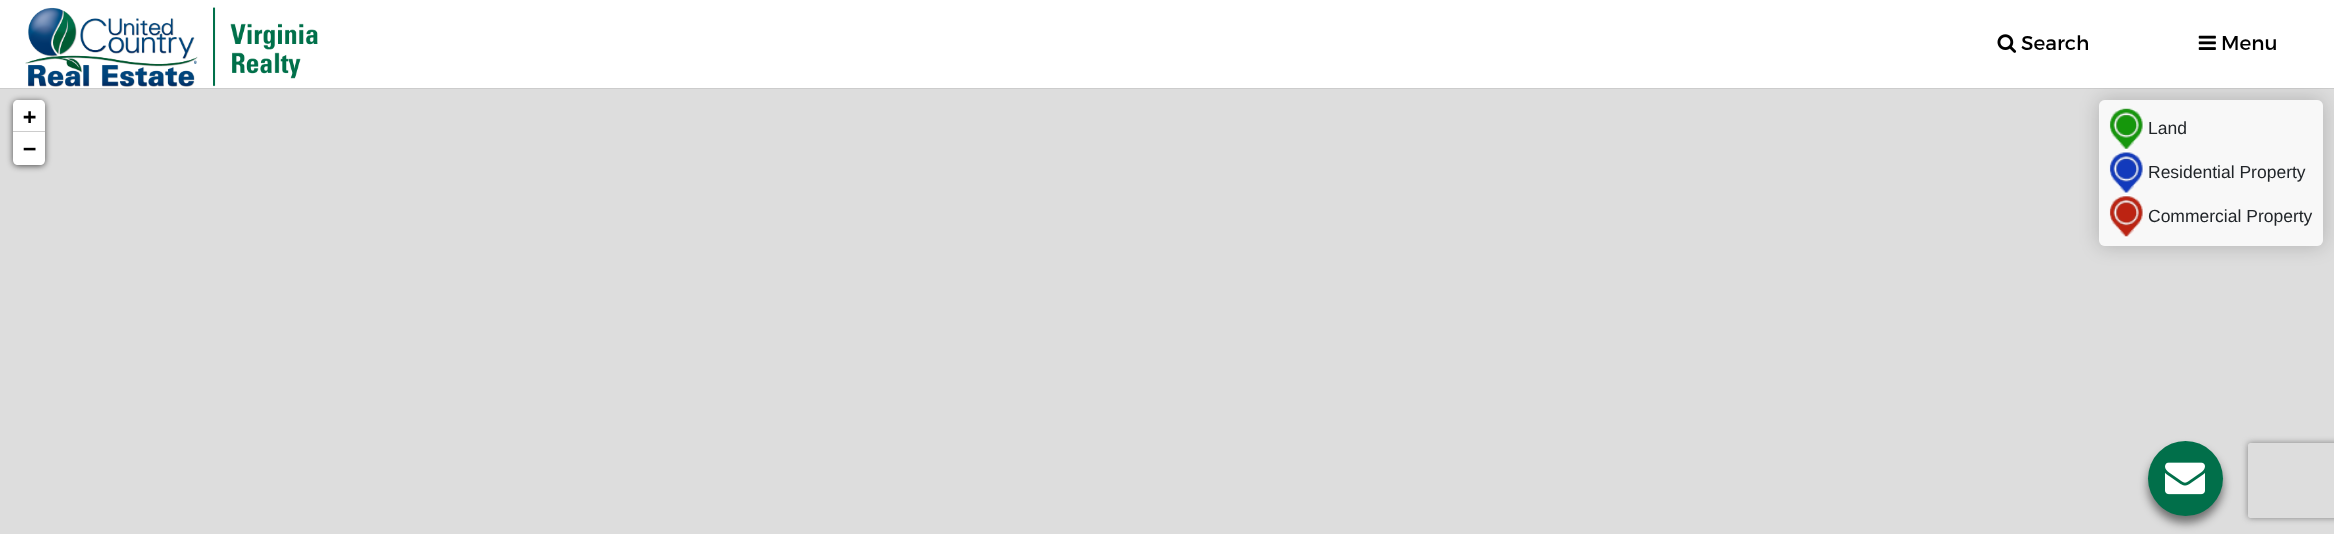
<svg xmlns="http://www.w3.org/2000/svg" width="2334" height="534">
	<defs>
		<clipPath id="clip1"><rect x="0" y="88" width="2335" height="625" /></clipPath>
		<clipPath id="clip2"><path d="M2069 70H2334V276H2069ZM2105 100H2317C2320.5 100 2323 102.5 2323 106V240C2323 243.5 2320.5 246 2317 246H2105C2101.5 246 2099 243.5 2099 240V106C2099 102.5 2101.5 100 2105 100Z" clip-rule="evenodd" /></clipPath>
		<clipPath id="clip3"><path d="M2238 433H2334V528H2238ZM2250.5 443H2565.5C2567 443 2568 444 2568 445.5V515.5C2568 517 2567 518 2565.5 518H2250.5C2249 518 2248 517 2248 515.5V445.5C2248 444 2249 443 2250.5 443Z" clip-rule="evenodd" /></clipPath>
	</defs>
	<rect width="100%" height="100%" fill="#DDDDDD" />
	<rect x="0" y="0" width="2334" height="88" fill="#FFFFFF" />
	<rect x="0" y="88" width="2334" height="1" fill="#CCCCCC" />
	<image x="25" y="7" width="293" height="80" href="assets/img1.png" />
	<image x="1997" y="34" width="20" height="19" href="assets/img2.png" />
	<text x="2021" y="50" font-family="Montserrat" font-size="20" fill="#000000">Search</text>
	<image x="2198" y="35" width="18" height="15" href="assets/img3.png" />
	<text x="2221" y="50" font-family="Montserrat" font-size="20" fill="#000000">Menu</text>
	<rect x="13" y="101" width="32" height="65" rx="5" fill="#000000" fill-opacity="0.65" filter="blur(3px)" />
	<path d="M18 100H40C43 100 45 102 45 105V133H13V105C13 102 15 100 18 100Z" fill="#FFFFFF" />
	<rect x="13" y="131" width="32" height="1" fill="#CCCCCC" />
	<text x="23" y="124" font-family="DejaVu Sans Mono" font-size="22" font-weight="700" fill="#000000">+</text>
	<path d="M13 133H45V160C45 163 43 165 40 165H18C15 165 13 163 13 160Z" fill="#FFFFFF" />
	<text x="23" y="156" font-family="DejaVu Sans Mono" font-size="22" font-weight="700" fill="#000000">−</text>
	<g clip-path="url(#clip1)">
		<g clip-path="url(#clip2)">
			<rect x="2099" y="100" width="224" height="146" rx="6" fill="#000000" fill-opacity="0.2" filter="blur(9.5px)" />
		</g>
	</g>
	<rect x="2099" y="100" width="224" height="146" rx="6" fill="#FFFFFF" fill-opacity="0.8" />
	<image x="2109" y="108" width="35" height="43" href="assets/img4.png" />
	<text x="2148" y="134" font-family="Liberation Sans" font-size="17.5" fill="#212529">Land</text>
	<image x="2109" y="151" width="35" height="43" href="assets/img5.png" />
	<text x="2148" y="178" font-family="Liberation Sans" font-size="17.5" fill="#212529">Residential Property</text>
	<image x="2109" y="195" width="35" height="43" href="assets/img6.png" />
	<text x="2148" y="222" font-family="Liberation Sans" font-size="17.5" fill="#212529">Commercial Property</text>
	<rect x="2148" y="448" width="75" height="75" rx="37.5" fill="#000000" fill-opacity="0.5" filter="blur(5px)" />
	<circle cx="2185.5" cy="478.5" r="37.5" fill="#016F4A" />
	<image x="2165" y="462" width="40" height="33" href="assets/img7.png" />
	<g clip-path="url(#clip3)">
		<rect x="2248" y="443" width="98" height="75" rx="2.5" fill="#808080" filter="blur(3px)" />
	</g>
</svg>
